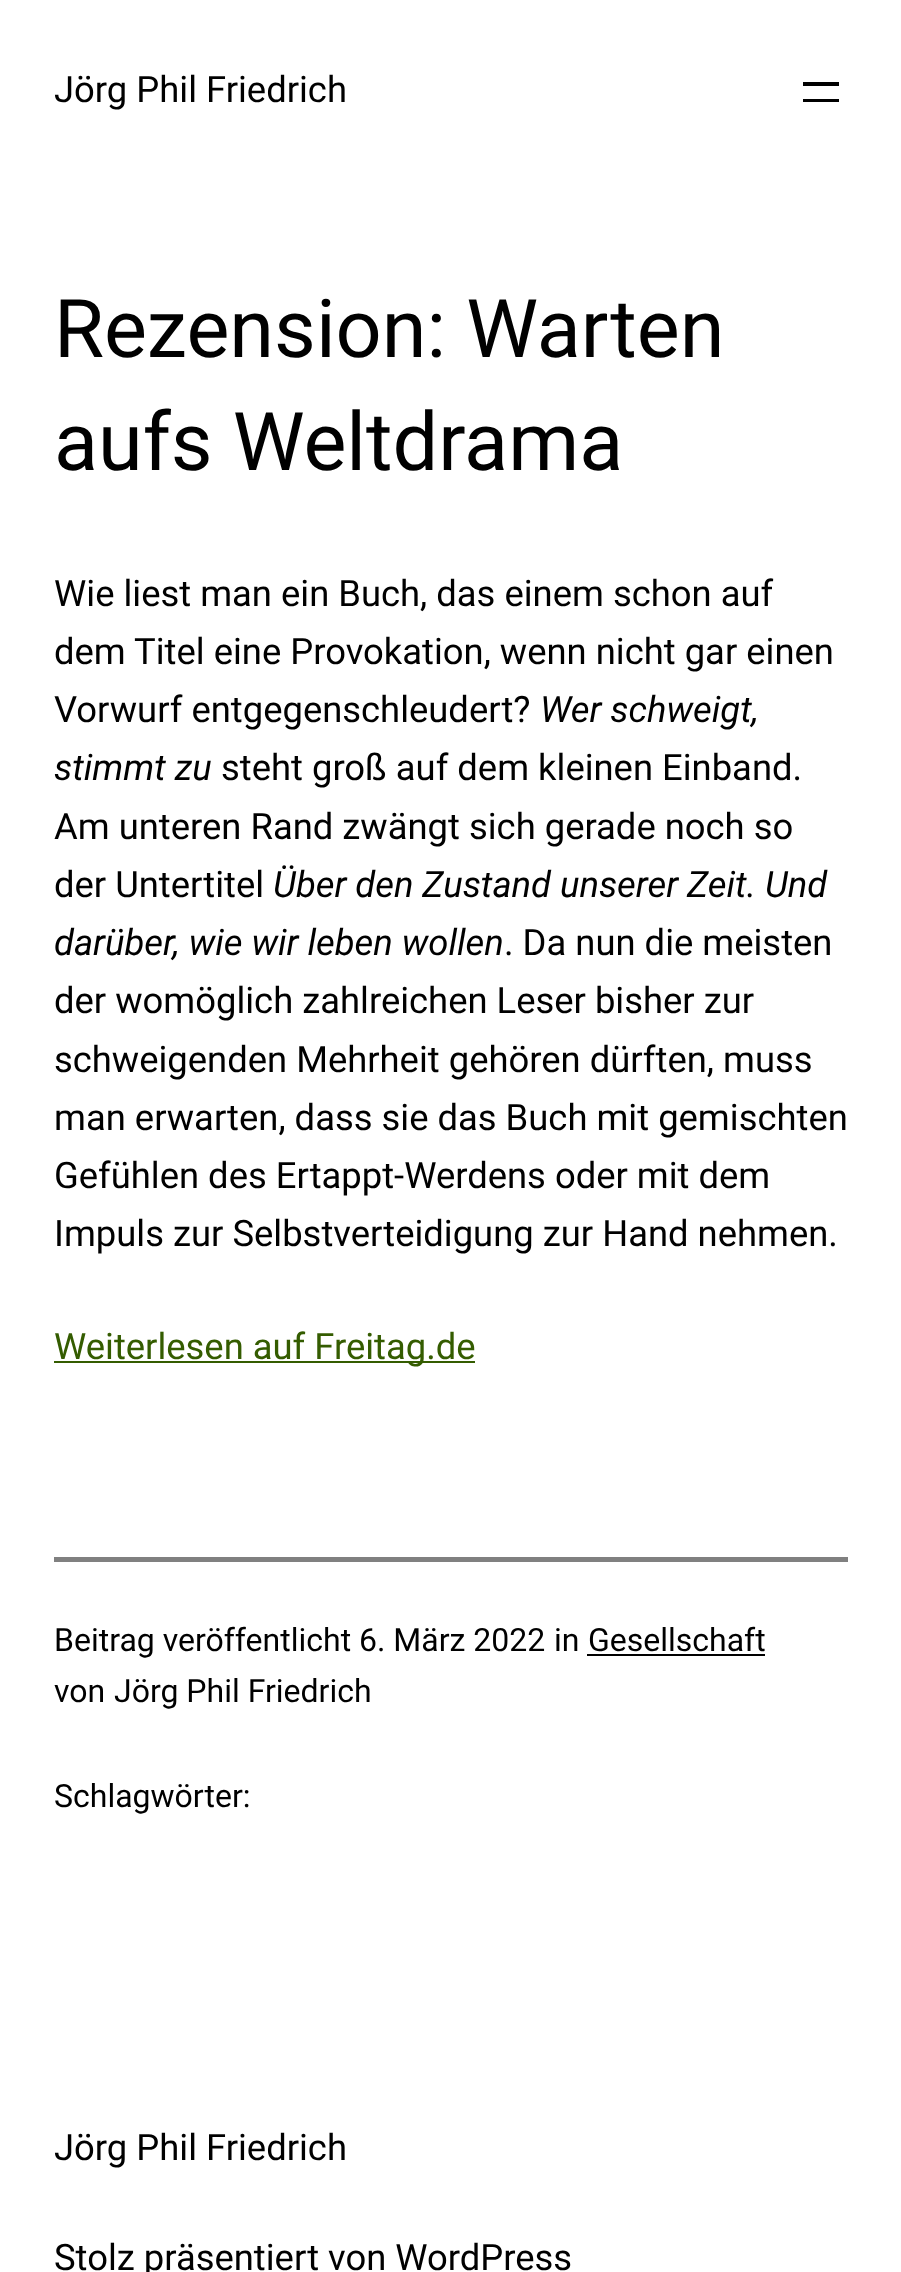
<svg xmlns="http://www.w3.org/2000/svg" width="901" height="2272">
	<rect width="100%" height="100%" fill="#FFFFFF" />
	<text x="54" y="102" font-family="Roboto" font-size="36.4" fill="#000000">Jörg Phil Friedrich</text>
	<rect x="803" y="82" width="36" height="4" fill="#000000" />
	<rect x="803" y="99" width="36" height="3" fill="#000000" />
	<g font-family="Roboto" font-size="81" fill="#000000">
		<text x="54" y="357">Rezension: Warten</text>
		<text x="54" y="470">aufs Weltdrama</text>
	</g>
	<g font-family="Roboto" font-size="36.4" fill="#000000">
		<text x="54" y="606">Wie liest man ein Buch, das einem schon auf</text>
		<text x="54" y="664">dem Titel eine Provokation, wenn nicht gar einen</text>
		<text x="54" y="722">Vorwurf entgegenschleudert?</text>
	</g>
	<g font-family="Roboto" font-size="36.4" font-style="italic" fill="#000000">
		<text x="540" y="722">Wer schweigt,</text>
		<text x="54" y="780">stimmt zu</text>
	</g>
	<g font-family="Roboto" font-size="36.4" fill="#000000">
		<text x="221" y="780">steht groß auf dem kleinen Einband.</text>
		<text x="54" y="839">Am unteren Rand zwängt sich gerade noch so</text>
		<text x="54" y="897">der Untertitel</text>
	</g>
	<g font-family="Roboto" font-size="36.4" font-style="italic" fill="#000000">
		<text x="273" y="897">Über den Zustand unserer Zeit. Und</text>
		<text x="54" y="955">darüber, wie wir leben wollen</text>
	</g>
	<g font-family="Roboto" font-size="36.4" fill="#000000">
		<text x="504" y="955">. Da nun die meisten</text>
		<text x="54" y="1013">der womöglich zahlreichen Leser bisher zur</text>
		<text x="54" y="1072">schweigenden Mehrheit gehören dürften, muss</text>
		<text x="54" y="1130">man erwarten, dass sie das Buch mit gemischten</text>
		<text x="54" y="1188">Gefühlen des Ertappt-Werdens oder mit dem</text>
		<text x="54" y="1246">Impuls zur Selbstverteidigung zur Hand nehmen.</text>
	</g>
	<rect x="54" y="1361" width="421" height="2" fill="#345C00" />
	<text x="54" y="1359" font-family="Roboto" font-size="36.4" fill="#345C00">Weiterlesen auf Freitag.de</text>
	<rect x="54" y="1557" width="794" height="5" fill="#808080" />
	<g font-family="Roboto" font-size="32" fill="#000000">
		<text x="54" y="1651">Beitrag veröffentlicht</text>
		<text x="359" y="1651">6. März 2022</text>
		<text x="554" y="1651">in</text>
		<text x="588" y="1651">Gesellschaft</text>
	</g>
	<rect x="587" y="1654" width="178" height="2" fill="#000000" />
	<g font-family="Roboto" font-size="32" fill="#000000">
		<text x="54" y="1702">von</text>
		<text x="114" y="1702">Jörg Phil Friedrich</text>
		<text x="54" y="1807">Schlagwörter:</text>
	</g>
	<g font-family="Roboto" font-size="36.4" fill="#000000">
		<text x="54" y="2160">Jörg Phil Friedrich</text>
		<text x="54" y="2270">Stolz präsentiert von WordPress</text>
	</g>
</svg>
